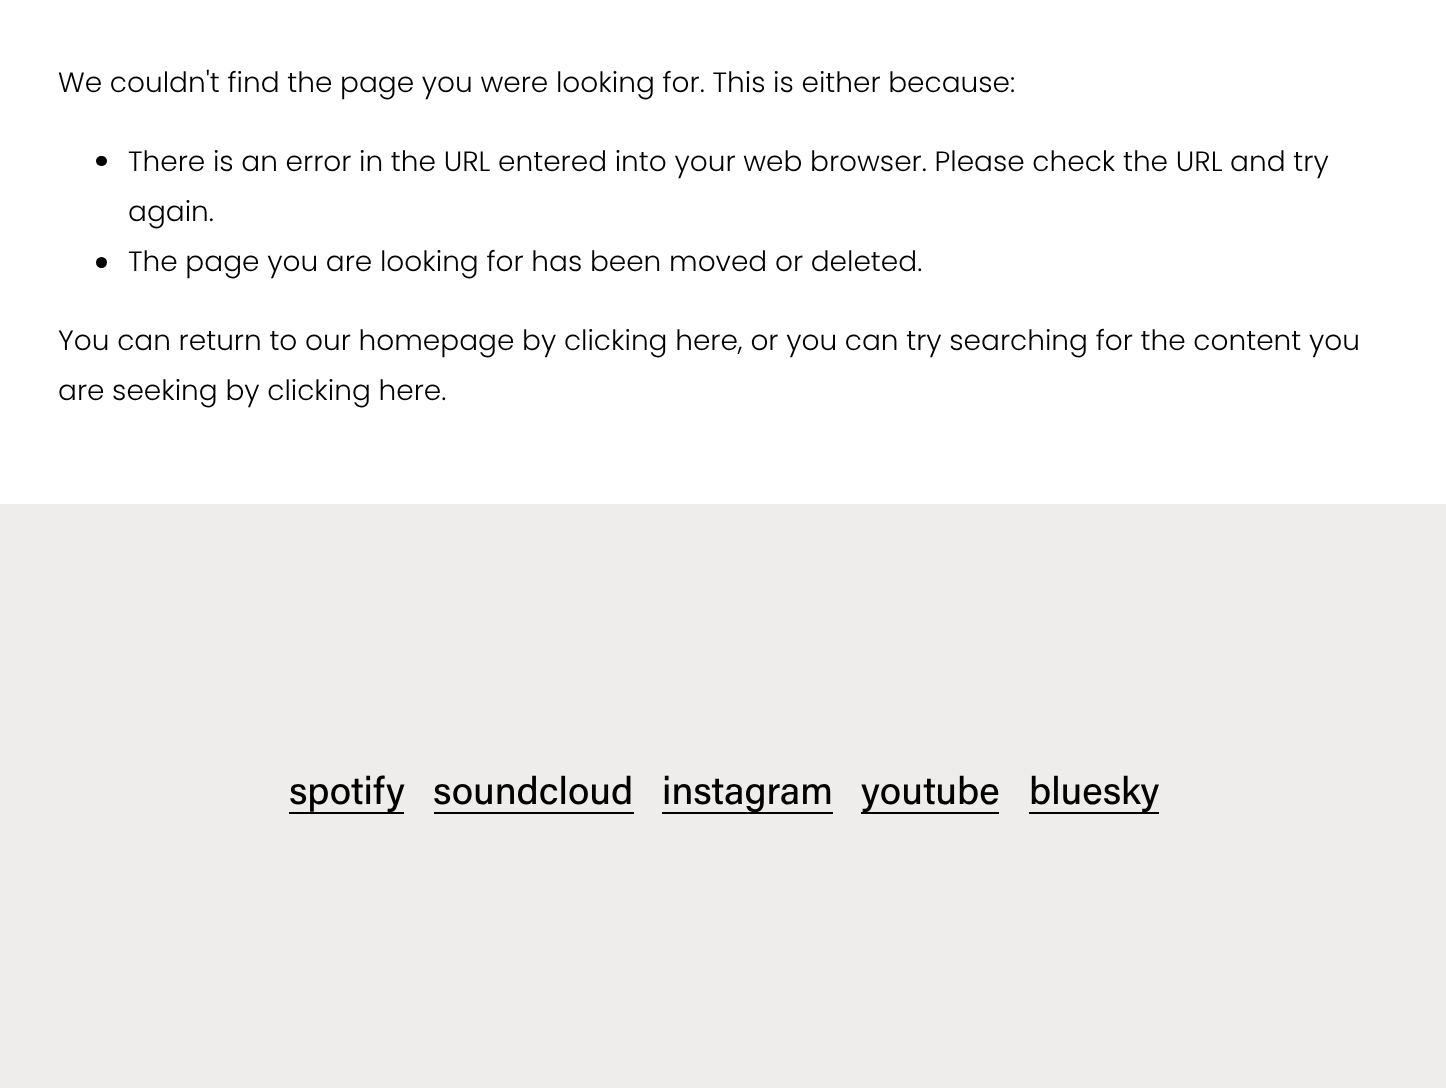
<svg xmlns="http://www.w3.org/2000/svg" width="1446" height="1088">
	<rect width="100%" height="100%" fill="#FFFFFF" />
	<text x="58" y="92" font-family="Poppins" font-size="28" font-weight="300" fill="#000000">We couldn't find the page you were looking for. This is either because:</text>
	<rect x="96" y="156" width="11" height="10" rx="5" fill="#000000" />
	<g font-family="Poppins" font-size="28" font-weight="300" fill="#000000">
		<text x="128" y="171">There is an error in the URL entered into your web browser. Please check the URL and try</text>
		<text x="128" y="221">again.</text>
	</g>
	<circle cx="101.5" cy="262.5" r="5.5" fill="#000000" />
	<g font-family="Poppins" font-size="28" font-weight="300" fill="#000000">
		<text x="128" y="271">The page you are looking for has been moved or deleted.</text>
		<text x="58" y="350">You can return to our homepage by clicking here, or you can try searching for the content you</text>
		<text x="58" y="400">are seeking by clicking here.</text>
	</g>
	<rect x="0" y="504" width="1446" height="584" fill="#EEEDEB" />
	<text x="289" y="804" font-family="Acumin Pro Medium" font-size="38.5" font-weight="500" fill="#000000">spotify</text>
	<rect x="289" y="812" width="115" height="2" fill="#000000" />
	<text x="433" y="804" font-family="Acumin Pro Medium" font-size="38.5" font-weight="500" fill="#000000">soundcloud</text>
	<rect x="434" y="812" width="200" height="2" fill="#000000" />
	<text x="662" y="804" font-family="Acumin Pro Medium" font-size="38.5" font-weight="500" fill="#000000">instagram</text>
	<rect x="662" y="812" width="171" height="2" fill="#000000" />
	<text x="861" y="804" font-family="Acumin Pro Medium" font-size="38.5" font-weight="500" fill="#000000">youtube</text>
	<rect x="861" y="812" width="138" height="2" fill="#000000" />
	<text x="1029" y="804" font-family="Acumin Pro Medium" font-size="38.5" font-weight="500" fill="#000000">bluesky</text>
	<rect x="1029" y="812" width="130" height="2" fill="#000000" />
</svg>
